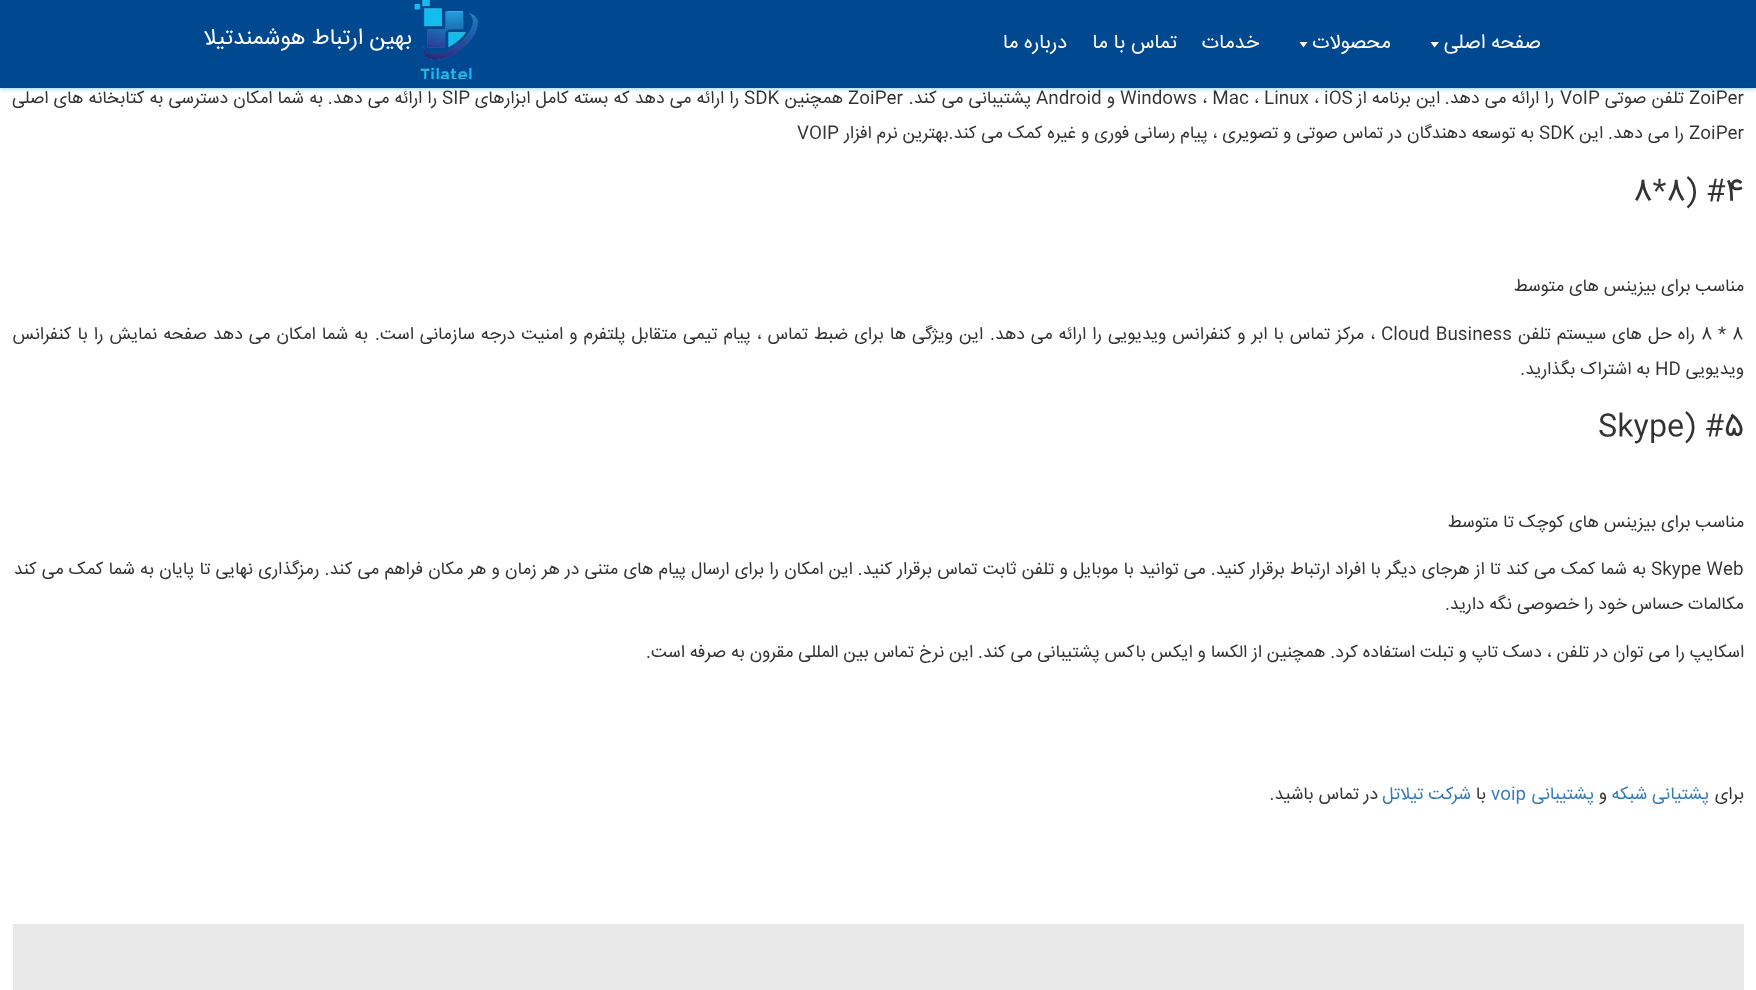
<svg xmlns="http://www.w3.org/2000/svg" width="1756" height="990">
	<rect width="100%" height="100%" fill="#FFFFFF" />
	<rect x="0" y="0" width="1756" height="88" fill="#65C0DB" filter="blur(2.5px)" />
	<rect x="0" y="0" width="1756" height="88" fill="#004991" />
	<text x="1541" y="48" font-family="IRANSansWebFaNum" font-size="20" direction="rtl" fill="#FFFDFD">صفحه اصلی</text>
	<path d="M1439 42L1434.5 47.5L1430.5 42Z" fill="#FFFDFD" />
	<text x="1391" y="48" font-family="IRANSansWebFaNum" font-size="20" direction="rtl" fill="#FFFDFD">محصولات</text>
	<path d="M1307.5 42L1303.5 47.5L1299.5 42Z" fill="#FFFDFD" />
	<g font-family="IRANSansWebFaNum" font-size="20" direction="rtl" fill="#FFFDFD">
		<text x="1259" y="48">خدمات</text>
		<text x="1177" y="48">تماس با ما</text>
		<text x="1067" y="48">درباره ما</text>
	</g>
	<image x="414" y="0" width="64" height="79" href="assets/img1.png" />
	<text x="412" y="44" font-family="IRANSansWebFaNum" font-size="22.5" direction="rtl" fill="#FFFDFD">بهین ارتباط هوشمندتیلا</text>
	<text x="1689" y="103" font-family="IRANSansWebFaNum" font-size="17.5" fill="#333333">ZoiPer</text>
	<text x="1684" y="103" word-spacing="0.25" font-family="IRANSansWebFaNum" font-size="17.5" direction="rtl" fill="#333333">تلفن صوتی</text>
	<text x="1560" y="103" font-family="IRANSansWebFaNum" font-size="17.5" fill="#333333">VoIP</text>
	<g font-family="IRANSansWebFaNum" font-size="17.5" direction="rtl" fill="#333333">
		<text x="1554" y="103" word-spacing="0.25">را ارائه می دهد.</text>
		<text x="1440" y="103" word-spacing="0.25">این برنامه از</text>
	</g>
	<text x="1120" y="103" word-spacing="0.25" font-family="IRANSansWebFaNum" font-size="17.5" fill="#333333">Windows ، Mac ، Linux ، iOS</text>
	<text x="1115" y="103" font-family="IRANSansWebFaNum" font-size="17.5" direction="rtl" fill="#333333">و</text>
	<text x="1036" y="103" font-family="IRANSansWebFaNum" font-size="17.5" fill="#333333">Android</text>
	<text x="1031" y="103" word-spacing="0.25" font-family="IRANSansWebFaNum" font-size="17.5" direction="rtl" fill="#333333">پشتیبانی می کند.</text>
	<text x="848" y="103" font-family="IRANSansWebFaNum" font-size="17.5" fill="#333333">ZoiPer</text>
	<text x="843" y="103" font-family="IRANSansWebFaNum" font-size="17.5" direction="rtl" fill="#333333">همچنین</text>
	<text x="744" y="103" font-family="IRANSansWebFaNum" font-size="17.5" fill="#333333">SDK</text>
	<text x="739" y="103" word-spacing="0.25" font-family="IRANSansWebFaNum" font-size="17.5" direction="rtl" fill="#333333">را ارائه می دهد که بسته کامل ابزارهای</text>
	<text x="442" y="103" font-family="IRANSansWebFaNum" font-size="17.5" fill="#333333">SIP</text>
	<g font-family="IRANSansWebFaNum" font-size="17.5" direction="rtl" fill="#333333">
		<text x="437" y="103" word-spacing="0.25">را ارائه می دهد.</text>
		<text x="323" y="103" word-spacing="0.25">به شما امکان دسترسی به کتابخانه های اصلی</text>
	</g>
	<text x="1689" y="138" font-family="IRANSansWebFaNum" font-size="17.5" fill="#333333">ZoiPer</text>
	<g font-family="IRANSansWebFaNum" font-size="17.5" direction="rtl" fill="#333333">
		<text x="1684" y="138">را می دهد.</text>
		<text x="1603" y="138">این</text>
	</g>
	<text x="1539" y="138" font-family="IRANSansWebFaNum" font-size="17.5" fill="#333333">SDK</text>
	<text x="1534" y="138" font-family="IRANSansWebFaNum" font-size="17.5" direction="rtl" fill="#333333">به توسعه دهندگان در تماس صوتی و تصویری ، پیام رسانی فوری و غیره کمک می کند.بهترین نرم افزار</text>
	<text x="797" y="138" font-family="IRANSansWebFaNum" font-size="17.5" fill="#333333">VOIP</text>
	<text x="1633" y="200" font-family="IRANSansWebFaNum" font-size="30" fill="#333333">8*8) #4</text>
	<text x="1744" y="291" font-family="IRANSansWebFaNum" font-size="17.5" direction="rtl" fill="#333333">مناسب برای بیزینس های متوسط</text>
	<g font-family="IRANSansWebFaNum" font-size="17.5" fill="#333333">
		<text x="1732" y="339">8</text>
		<text x="1718" y="339">*</text>
		<text x="1701" y="339">8</text>
	</g>
	<text x="1695" y="339" word-spacing="1.1" font-family="IRANSansWebFaNum" font-size="17.5" direction="rtl" fill="#333333">راه حل های سیستم تلفن</text>
	<text x="1381" y="339" word-spacing="1.1" font-family="IRANSansWebFaNum" font-size="17.5" fill="#333333">Cloud Business</text>
	<g font-family="IRANSansWebFaNum" font-size="17.5" direction="rtl" fill="#333333">
		<text x="1375" y="339" word-spacing="1.1">، مرکز تماس با ابر و کنفرانس ویدیویی را ارائه می دهد.</text>
		<text x="983" y="339" word-spacing="1.1">این ویژگی ها برای ضبط تماس ، پیام تیمی متقابل پلتفرم و امنیت درجه سازمانی است.</text>
		<text x="368" y="339" word-spacing="1.1">به شما امکان می دهد صفحه نمایش را با کنفرانس</text>
		<text x="1744" y="374">ویدیویی</text>
	</g>
	<text x="1655" y="374" font-family="IRANSansWebFaNum" font-size="17.5" fill="#333333">HD</text>
	<text x="1650" y="374" font-family="IRANSansWebFaNum" font-size="17.5" direction="rtl" fill="#333333">به اشتراک بگذارید.</text>
	<text x="1598" y="435" font-family="IRANSansWebFaNum" font-size="30" fill="#333333">Skype) #5</text>
	<text x="1744" y="527" font-family="IRANSansWebFaNum" font-size="17.5" direction="rtl" fill="#333333">مناسب برای بیزینس های کوچک تا متوسط</text>
	<text x="1651" y="574" font-family="IRANSansWebFaNum" font-size="17.5" fill="#333333">Skype Web</text>
	<g font-family="IRANSansWebFaNum" font-size="17.5" direction="rtl" fill="#333333">
		<text x="1646" y="574" word-spacing="0.3">به شما کمک می کند تا از هرجای دیگر با افراد ارتباط برقرار کنید. می توانید با موبایل و تلفن ثابت تماس برقرار کنید. این امکان را برای ارسال پیام های متنی در هر زمان و هر مکان فراهم می کند. رمزگذاری نهایی تا پایان به شما کمک می کند</text>
		<text x="1744" y="609">مکالمات حساس خود را خصوصی نگه دارید.</text>
		<text x="1744" y="657">اسکایپ را می توان در تلفن ، دسک تاپ و تبلت استفاده کرد. همچنین از الکسا و ایکس باکس پشتیبانی می کند. این نرخ تماس بین المللی مقرون به صرفه است.</text>
		<text x="1744" y="799">برای</text>
	</g>
	<text x="1709" y="799" font-family="IRANSansWebFaNum" font-size="17.5" direction="rtl" fill="#337AB7">پشتیانی شبکه</text>
	<text x="1607" y="799" font-family="IRANSansWebFaNum" font-size="17.5" direction="rtl" fill="#333333">و</text>
	<text x="1594" y="799" font-family="IRANSansWebFaNum" font-size="17.5" direction="rtl" fill="#337AB7">پشتیبانی</text>
	<text x="1491" y="799" font-family="IRANSansWebFaNum" font-size="17.5" fill="#337AB7">voip</text>
	<text x="1486" y="799" font-family="IRANSansWebFaNum" font-size="17.5" direction="rtl" fill="#333333">با</text>
	<text x="1471" y="799" font-family="IRANSansWebFaNum" font-size="17.5" direction="rtl" fill="#337AB7">شرکت تیلاتل</text>
	<text x="1378" y="799" font-family="IRANSansWebFaNum" font-size="17.5" direction="rtl" fill="#333333">در تماس باشید.</text>
	<rect x="13" y="924" width="1731" height="66" fill="#E9E9E9" />
</svg>
